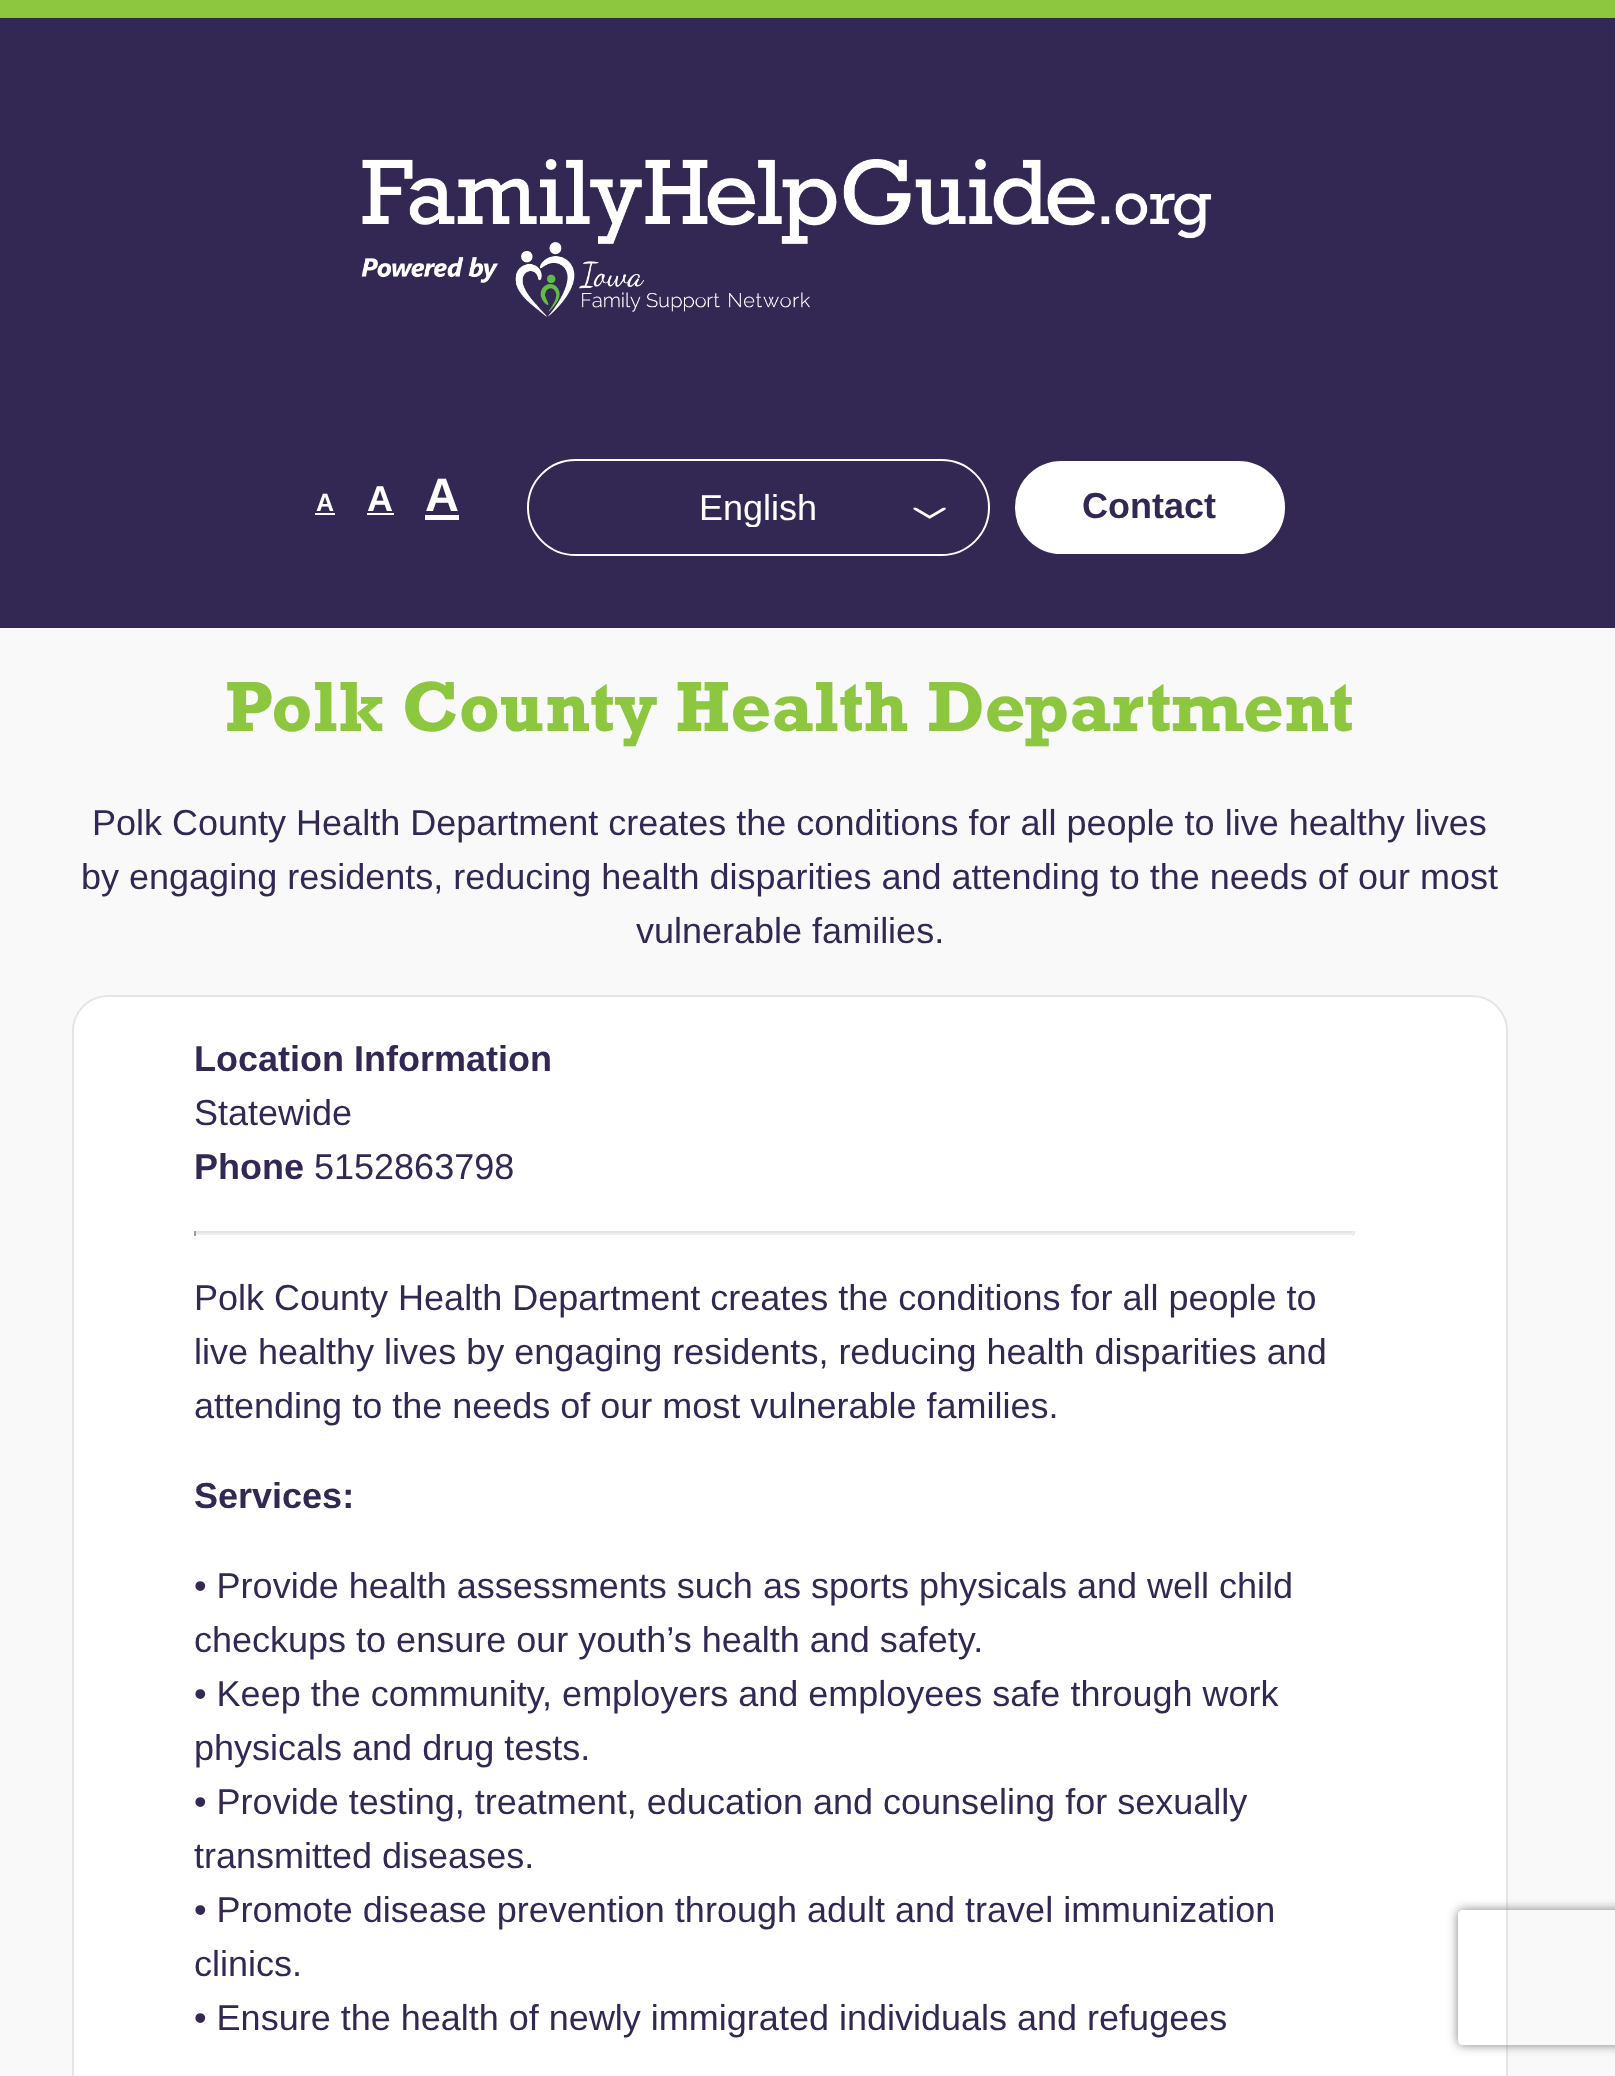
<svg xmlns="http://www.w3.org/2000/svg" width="1615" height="2076">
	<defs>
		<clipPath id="clip1"><rect x="596" y="488" width="324" height="39" /></clipPath>
		<clipPath id="clip2"><path d="M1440 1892H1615V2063H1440ZM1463 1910H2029C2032 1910 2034 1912 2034 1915V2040C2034 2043 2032 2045 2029 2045H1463C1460 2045 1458 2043 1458 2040V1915C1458 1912 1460 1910 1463 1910Z" clip-rule="evenodd" /></clipPath>
	</defs>
	<rect width="100%" height="100%" fill="#F9F9F9" />
	<rect x="0" y="18" width="1615" height="610" fill="#332853" />
	<rect x="0" y="0" width="1615" height="18" fill="#8DC63F" />
	<image x="361" y="159" width="851" height="158" href="assets/img1.png" />
	<text x="316" y="511" font-family="Liberation Sans" font-size="25" font-weight="700" fill="#FFFFFF">A</text>
	<rect x="315" y="513" width="20" height="2" fill="#FFFFFF" />
	<text x="367" y="511" font-family="Liberation Sans" font-size="36" font-weight="700" fill="#FFFFFF">A</text>
	<rect x="367" y="513" width="27" height="2" fill="#FFFFFF" />
	<text x="425" y="511" font-family="Liberation Sans" font-size="47" font-weight="700" fill="#FFFFFF">A</text>
	<rect x="425" y="515" width="34" height="5" fill="#FFFFFF" />
	<rect x="528" y="460" width="461" height="95" rx="47.5" fill="none" stroke="#FFFFFF" stroke-width="2" />
	<g clip-path="url(#clip1)">
		<text x="699" y="520" font-family="Liberation Sans" font-size="36" fill="#FFFFFF">English</text>
	</g>
	<image x="913" y="507" width="33" height="12" href="assets/img2.png" />
	<rect x="1014" y="460" width="272" height="95" rx="47.5" fill="#FFFFFF" stroke="#332853" stroke-width="2" />
	<text x="1082" y="518" font-family="Liberation Sans" font-size="36" font-weight="700" fill="#332853">Contact</text>
	<text x="225" y="731" font-family="Rockwell" font-size="72" font-weight="700" fill="#8DC63F">Polk County Health Department</text>
	<g font-family="Liberation Sans" font-size="36" fill="#332853">
		<text x="92" y="835">Polk County Health Department creates the conditions for all people to live healthy lives</text>
		<text x="81" y="889">by engaging residents, reducing health disparities and attending to the needs of our most</text>
		<text x="636" y="943">vulnerable families.</text>
	</g>
	<rect x="73" y="996" width="1434" height="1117" rx="35" fill="#FFFFFF" stroke="#E5E5E5" stroke-width="2" />
	<text x="194" y="1071" font-family="Liberation Sans" font-size="36" font-weight="700" fill="#332853">Location Information</text>
	<text x="194" y="1125" font-family="Liberation Sans" font-size="36" fill="#332853">Statewide</text>
	<text x="194" y="1179" font-family="Liberation Sans" font-size="36" font-weight="700" fill="#332853">Phone</text>
	<text x="314" y="1179" font-family="Liberation Sans" font-size="36" fill="#332853">5152863798</text>
	<rect x="194" y="1231" width="1161" height="2" fill="#E5E5E5" />
	<rect x="1352" y="1231" width="2" height="5" fill="#EEEEEE" />
	<rect x="194" y="1233" width="1161" height="2" fill="#EEEEEE" />
	<rect x="194" y="1231" width="2" height="5" fill="#9F9F9F" />
	<g font-family="Liberation Sans" font-size="36" fill="#332853">
		<text x="194" y="1310">Polk County Health Department creates the conditions for all people to</text>
		<text x="194" y="1364">live healthy lives by engaging residents, reducing health disparities and</text>
		<text x="194" y="1418">attending to the needs of our most vulnerable families.</text>
	</g>
	<text x="194" y="1508" font-family="Liberation Sans" font-size="36" font-weight="700" fill="#332853">Services:</text>
	<g font-family="Liberation Sans" font-size="36" fill="#332853">
		<text x="194" y="1598">• Provide health assessments such as sports physicals and well child</text>
		<text x="194" y="1652">checkups to ensure our youth’s health and safety.</text>
		<text x="194" y="1706">• Keep the community, employers and employees safe through work</text>
		<text x="194" y="1760">physicals and drug tests.</text>
		<text x="194" y="1814">• Provide testing, treatment, education and counseling for sexually</text>
		<text x="194" y="1868">transmitted diseases.</text>
		<text x="194" y="1922">• Promote disease prevention through adult and travel immunization</text>
		<text x="194" y="1976">clinics.</text>
		<text x="194" y="2030">• Ensure the health of newly immigrated individuals and refugees</text>
	</g>
	<g clip-path="url(#clip2)">
		<rect x="1458" y="1910" width="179" height="135" rx="5" fill="#808080" filter="blur(5.5px)" />
	</g>
</svg>
